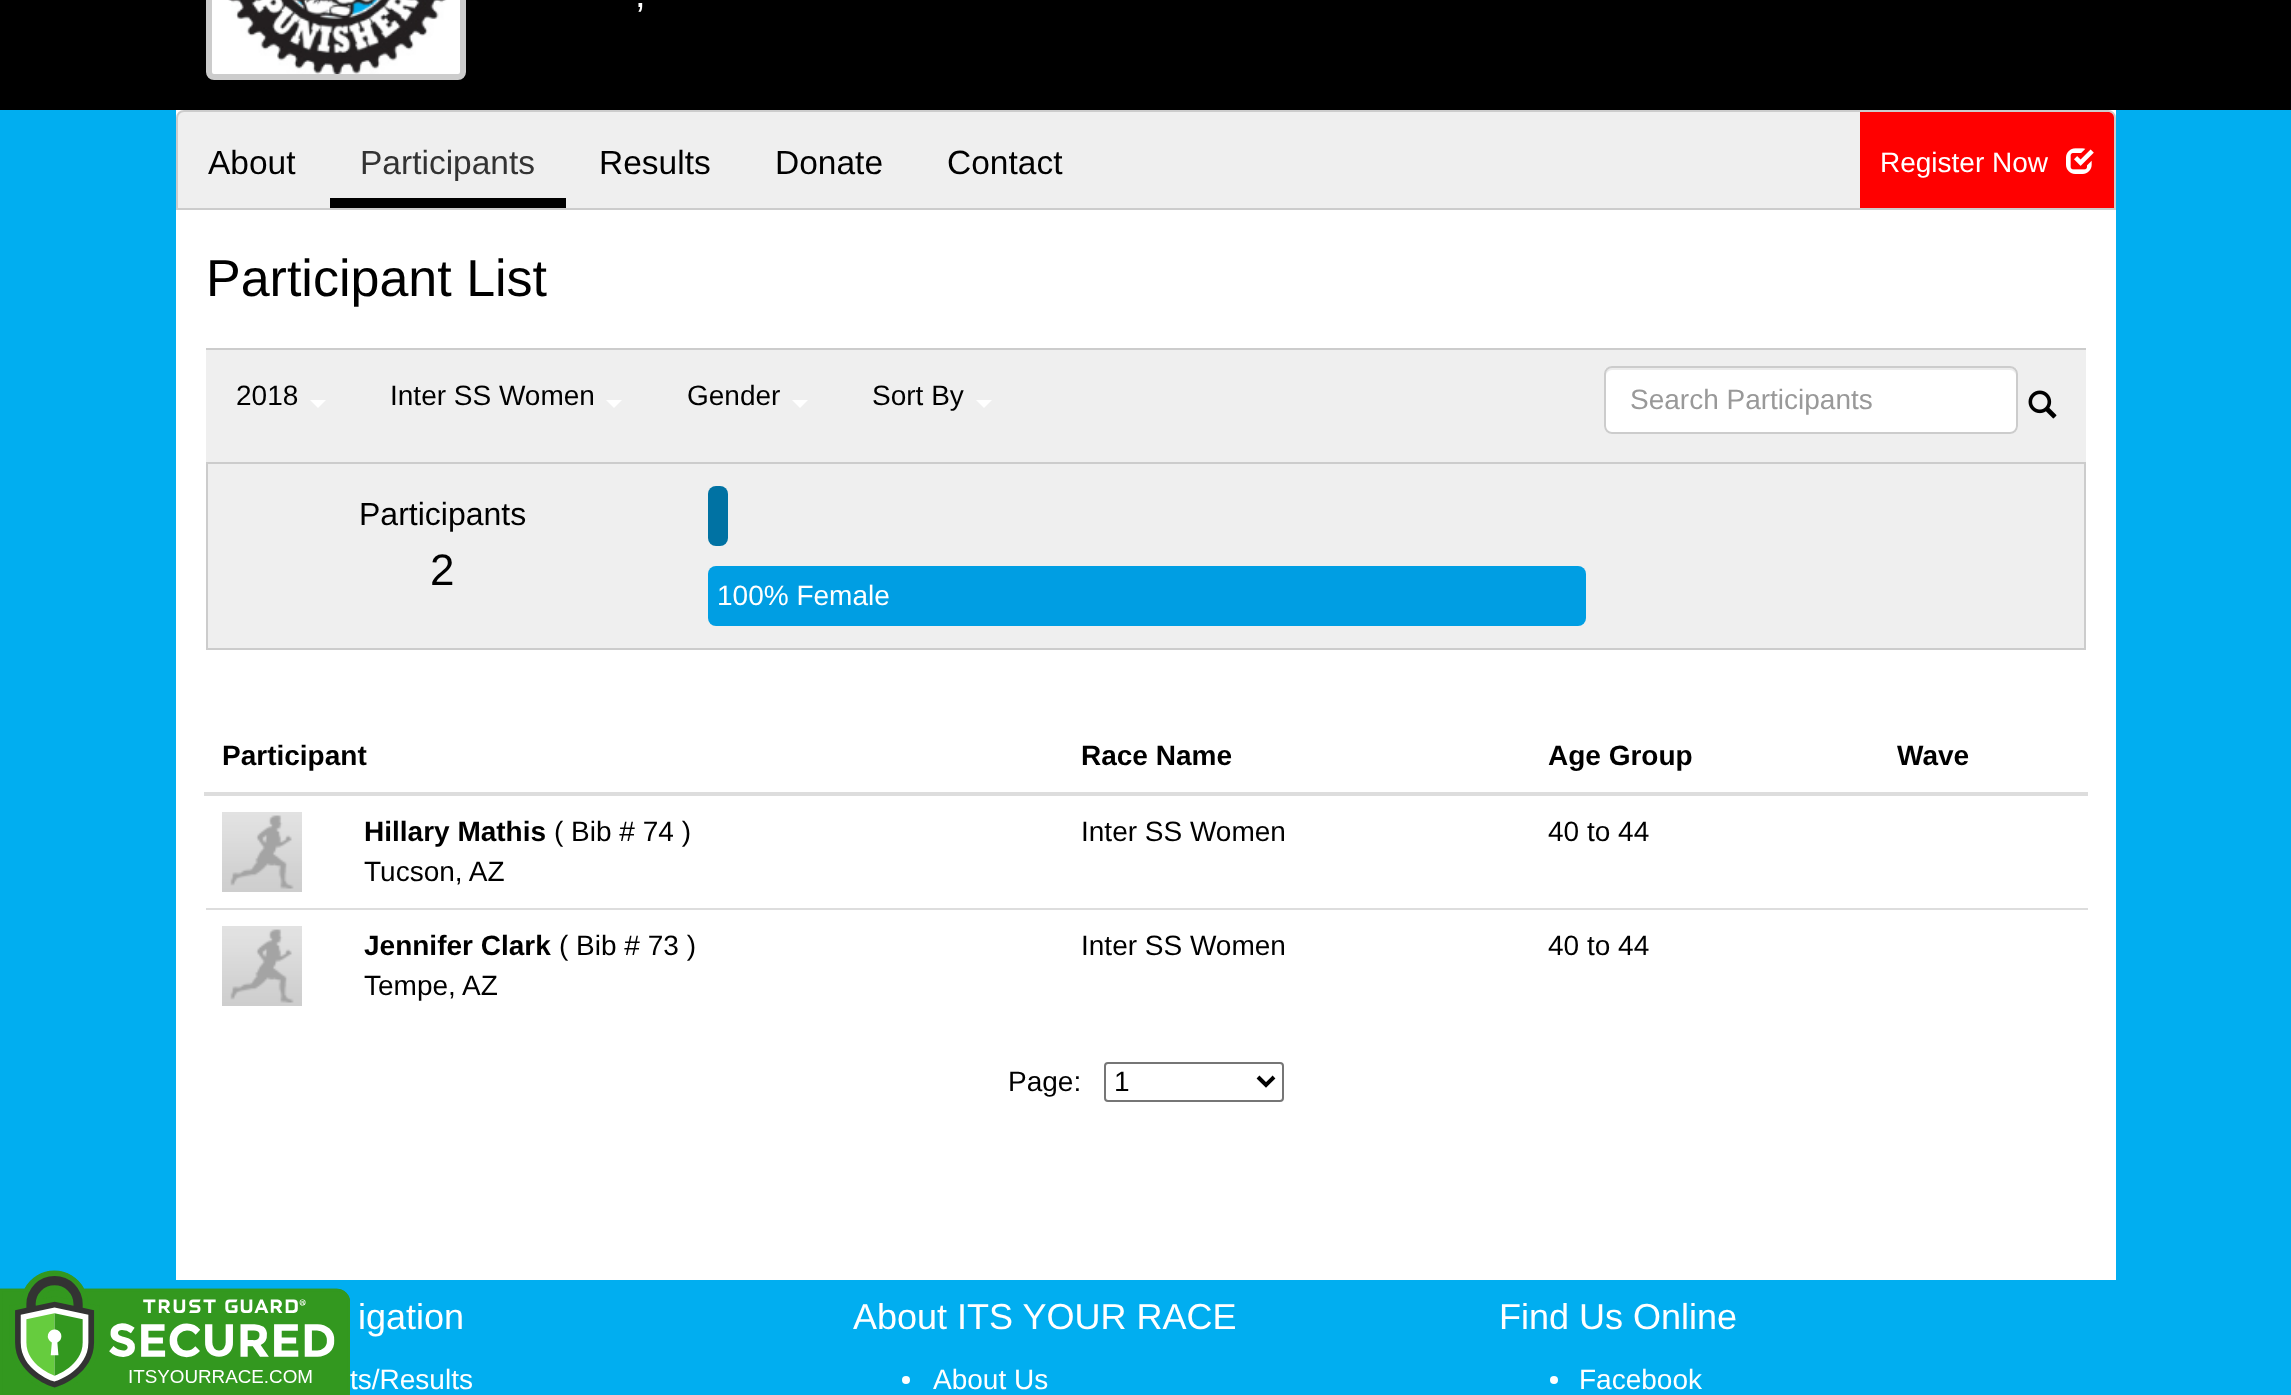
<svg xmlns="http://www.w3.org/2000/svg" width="2291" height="1395">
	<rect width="100%" height="100%" fill="#01AEF0" />
	<rect x="176" y="110" width="1940" height="1170" fill="#FFFFFF" />
	<image x="0" y="1270" width="350" height="125" href="assets/img1.png" />
	<rect x="0" y="0" width="2291" height="110" fill="#000000" />
	<rect x="209" y="-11" width="254" height="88" rx="5" fill="#FFFFFF" stroke="#CCCCCC" stroke-width="6" />
	<image x="228" y="0" width="219" height="74" href="assets/img2.png" />
	<text x="635" y="7" font-family="Liberation Sans" font-size="38" fill="#FFFFFF">,</text>
	<path d="M184 111H2108C2112 111 2115 114 2115 118V209H177V118C177 114 180 111 184 111Z" fill="#EFEFEF" stroke="#CCCCCC" stroke-width="2" />
	<text x="208" y="174" font-family="Liberation Sans" font-size="33.5" fill="#000000">About</text>
	<rect x="330" y="198" width="236" height="10" fill="#000000" />
	<text x="360" y="174" font-family="Liberation Sans" font-size="33.5" fill="#333333">Participants</text>
	<g font-family="Liberation Sans" font-size="33.5" fill="#000000">
		<text x="599" y="174">Results</text>
		<text x="775" y="174">Donate</text>
		<text x="947" y="174">Contact</text>
	</g>
	<path d="M1860 112H2108C2111.5 112 2114 114.5 2114 118V208H1860Z" fill="#FF0000" />
	<text x="1880" y="172" font-family="Liberation Sans" font-size="28" fill="#FFFFFF">Register Now</text>
	<image x="2066" y="148" width="28" height="26" href="assets/img3.png" />
	<text x="206" y="296" font-family="Liberation Sans" font-size="52" fill="#000000">Participant List</text>
	<rect x="206" y="350" width="1880" height="112" fill="#EFEFEF" />
	<rect x="206" y="348" width="1880" height="2" fill="#CCCCCC" />
	<text x="236" y="405" font-family="Liberation Sans" font-size="28" fill="#000000">2018</text>
	<path d="M310 400H326L318 408Z" fill="#FFFFFF" />
	<text x="390" y="405" font-family="Liberation Sans" font-size="28" fill="#000000">Inter SS Women</text>
	<path d="M606 400H622L614 408Z" fill="#FFFFFF" />
	<text x="687" y="405" font-family="Liberation Sans" font-size="28" fill="#000000">Gender</text>
	<path d="M792 400H808L800 408Z" fill="#FFFFFF" />
	<text x="872" y="405" font-family="Liberation Sans" font-size="28" fill="#000000">Sort By</text>
	<path d="M976 400H992L984 408Z" fill="#FFFFFF" />
	<rect x="1604" y="366" width="414" height="68" rx="8" fill="#FFFFFF" />
	<path d="M1612 370H2010C2013 370 2016 373 2016 376C2016 372 2015 368 2010 368H1612C1607 368 1606 372 1606 376C1606 373 1609 370 1612 370Z" fill="#ECECEC" />
	<rect x="1605" y="367" width="412" height="66" rx="7" fill="none" stroke="#CCCCCC" stroke-width="2" />
	<text x="1630" y="409" font-family="Liberation Sans" font-size="28" fill="#999999">Search Participants</text>
	<image x="2028" y="390" width="29" height="29" href="assets/img4.png" />
	<rect x="207" y="463" width="1878" height="186" fill="#EFEFEF" stroke="#CCCCCC" stroke-width="2" />
	<text x="359" y="525" font-family="Liberation Sans" font-size="32" fill="#000000">Participants</text>
	<text x="430" y="585" font-family="Liberation Sans" font-size="44" fill="#000000">2</text>
	<rect x="708" y="486" width="20" height="60" rx="8" fill="#0072A3" />
	<rect x="708" y="566" width="878" height="60" rx="8" fill="#009EE3" />
	<text x="717" y="605" font-family="Liberation Sans" font-size="28" fill="#FFFFFF">100% Female</text>
	<g font-family="Liberation Sans" font-size="28" font-weight="700" fill="#000000">
		<text x="222" y="765">Participant</text>
		<text x="1081" y="765">Race Name</text>
		<text x="1548" y="765">Age Group</text>
	</g>
	<rect x="204" y="792" width="1884" height="4" fill="#DDDDDD" />
	<text x="1897" y="765" font-family="Liberation Sans" font-size="28" font-weight="700" fill="#000000">Wave</text>
	<image x="222" y="812" width="80" height="80" href="assets/img5.png" />
	<text x="364" y="841" font-family="Liberation Sans" font-size="28" font-weight="700" fill="#000000">Hillary Mathis</text>
	<g font-family="Liberation Sans" font-size="28" fill="#000000">
		<text x="554" y="841">( Bib # 74 )</text>
		<text x="364" y="881">Tucson, AZ</text>
		<text x="1081" y="841">Inter SS Women</text>
		<text x="1548" y="841">40 to 44</text>
	</g>
	<rect x="206" y="908" width="1882" height="2" fill="#DDDDDD" />
	<image x="222" y="926" width="80" height="80" href="assets/img5.png" />
	<text x="364" y="955" font-family="Liberation Sans" font-size="28" font-weight="700" fill="#000000">Jennifer Clark</text>
	<g font-family="Liberation Sans" font-size="28" fill="#000000">
		<text x="559" y="955">( Bib # 73 )</text>
		<text x="364" y="995">Tempe, AZ</text>
		<text x="1081" y="955">Inter SS Women</text>
		<text x="1548" y="955">40 to 44</text>
		<text x="1008" y="1091">Page:</text>
	</g>
	<rect x="1105" y="1063" width="178" height="38" rx="3" fill="none" stroke="#767676" stroke-width="2" />
	<path d="M1258 1077L1266 1085L1274 1077" fill="none" stroke="#000000" stroke-width="4" />
	<text x="1114" y="1091" font-family="Liberation Sans" font-size="28" fill="#000000">1</text>
	<text x="358" y="1329" font-family="Liberation Sans" font-size="36" fill="#FFFFFF">igation</text>
	<text x="350" y="1389" font-family="Liberation Sans" font-size="28" fill="#FFFFFF">ts/Results</text>
	<text x="853" y="1329" font-family="Liberation Sans" font-size="36" fill="#FFFFFF">About ITS YOUR RACE</text>
	<circle cx="906" cy="1380" r="4" fill="#FFFFFF" />
	<text x="933" y="1389" font-family="Liberation Sans" font-size="28" fill="#FFFFFF">About Us</text>
	<text x="1499" y="1329" font-family="Liberation Sans" font-size="36" fill="#FFFFFF">Find Us Online</text>
	<circle cx="1554" cy="1380" r="4" fill="#FFFFFF" />
	<text x="1579" y="1389" font-family="Liberation Sans" font-size="28" fill="#FFFFFF">Facebook</text>
</svg>
